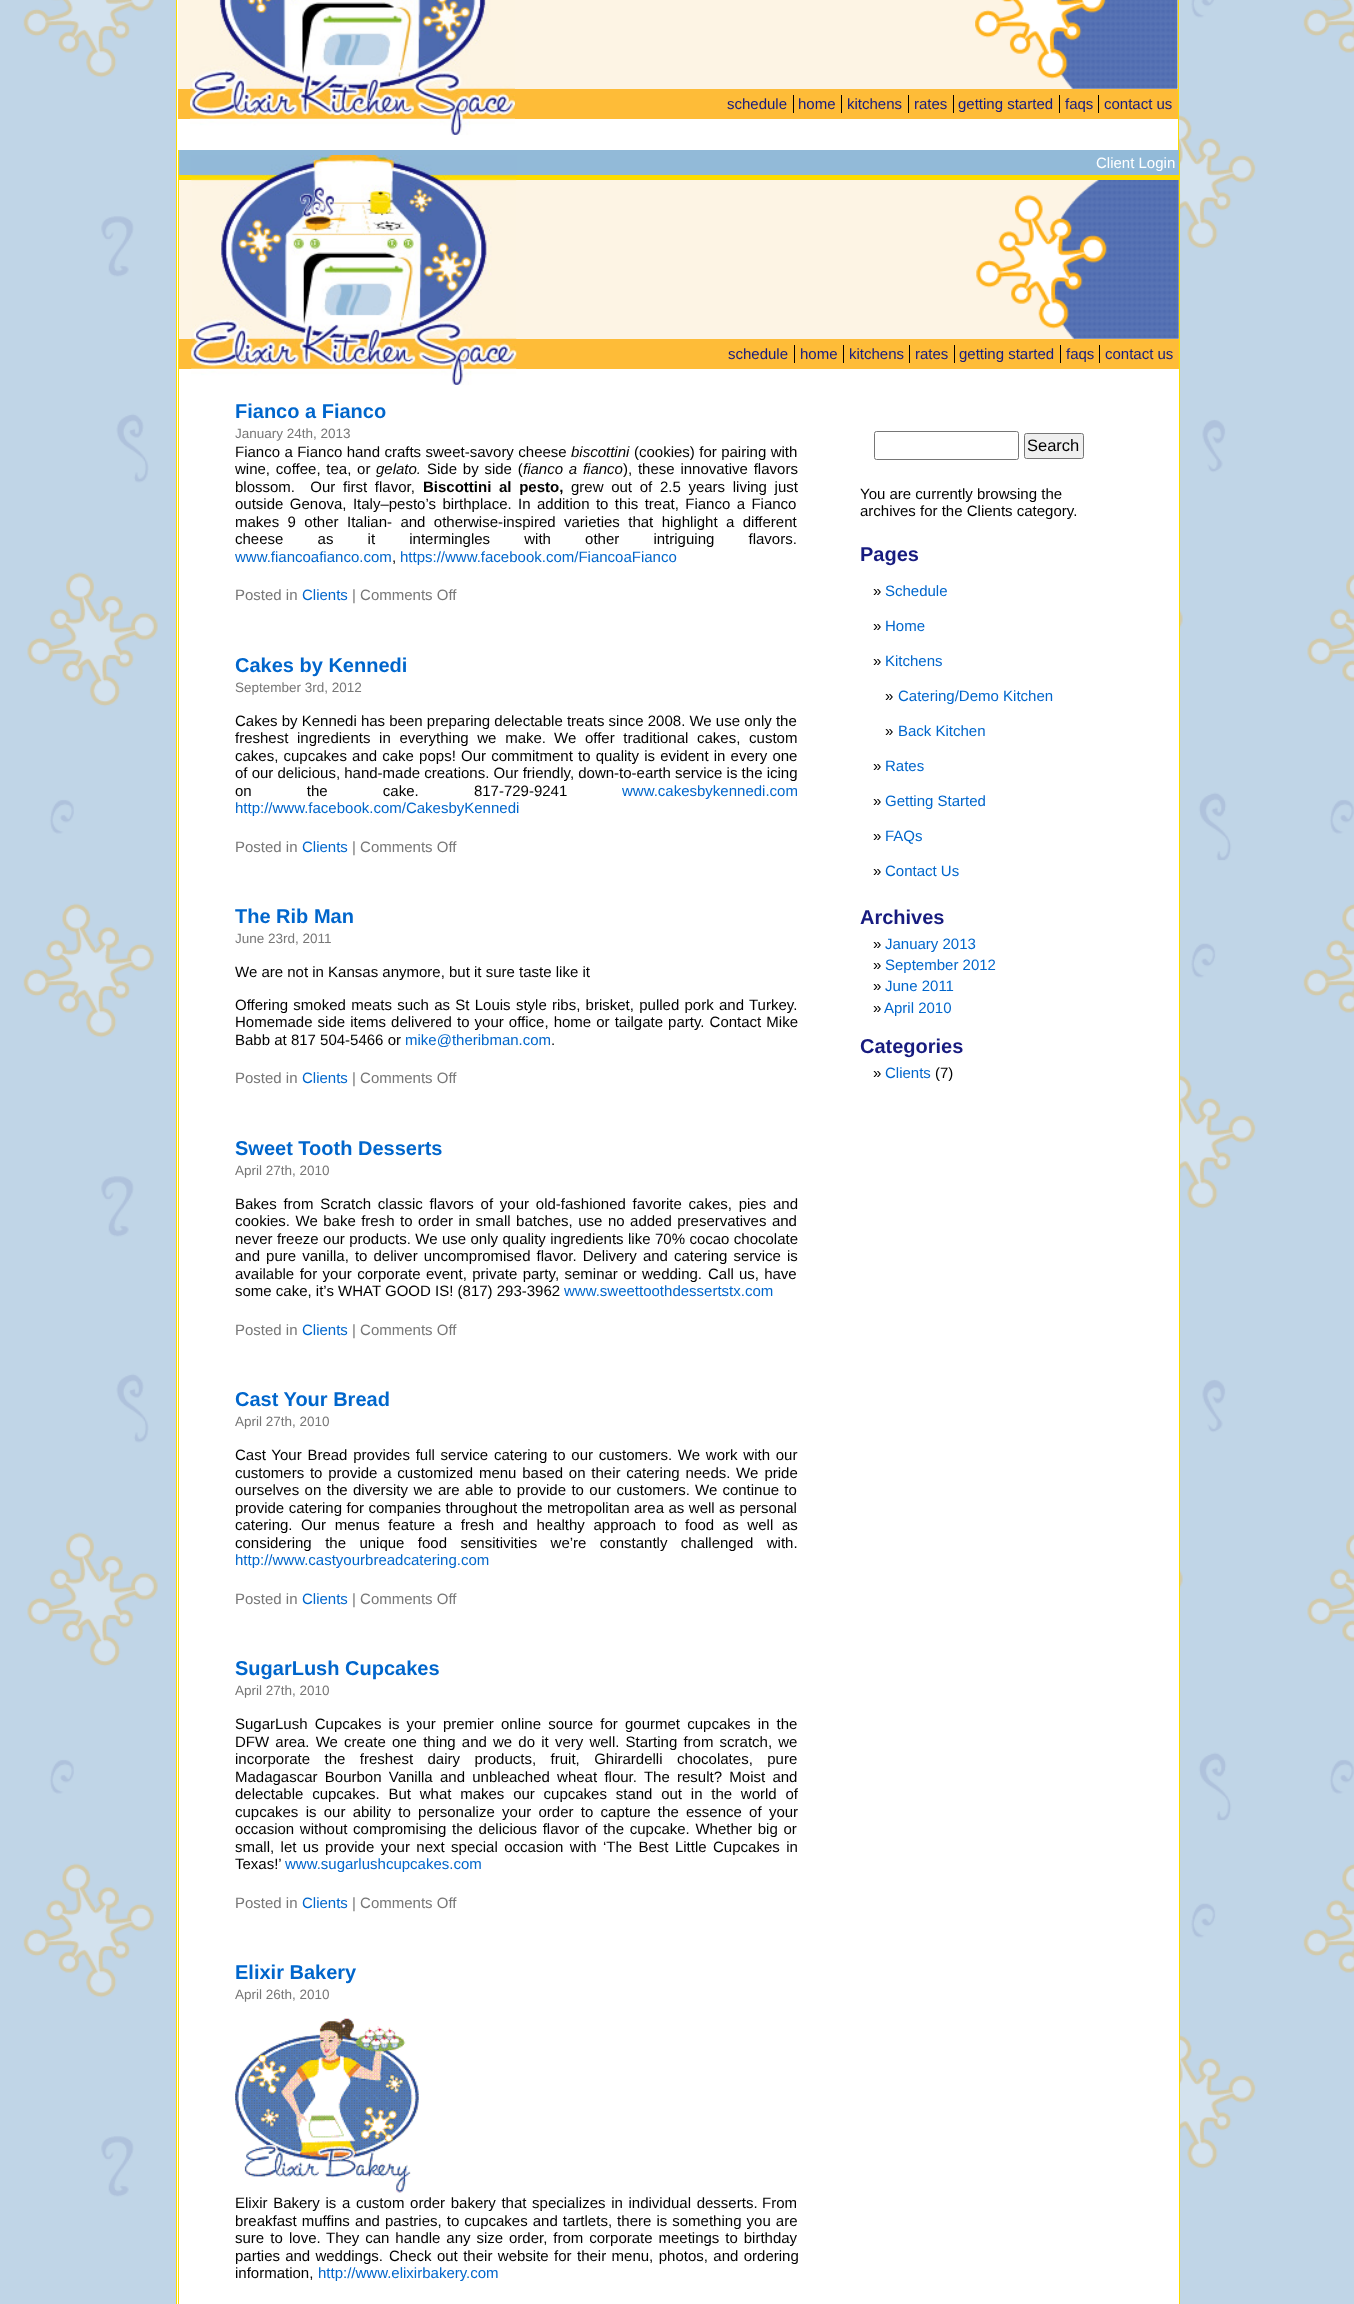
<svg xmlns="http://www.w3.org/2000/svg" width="1354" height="2304">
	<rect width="100%" height="100%" fill="#C0D5E7" />
	<image x="23" y="0" width="1331" height="2304" href="assets/img1.png" />
	<rect x="177" y="0" width="1001" height="2304" fill="#FFFFFF" />
	<rect x="1178" y="0" width="1" height="150" fill="#FCDC00" />
	<rect x="176" y="0" width="1" height="2304" fill="#FCDC00" />
	<rect x="178" y="0" width="1000" height="89" fill="#FDF4E4" />
	<image x="975" y="0" width="203" height="89" href="assets/img2.png" />
	<rect x="178" y="89" width="1000" height="30" fill="#FEBC38" />
	<image x="190" y="0" width="325" height="135" href="assets/img3.png" />
	<text x="727" y="109" font-family="Liberation Sans" font-size="15" fill="#171B7F">schedule</text>
	<rect x="793" y="95" width="1" height="18" fill="#000000" />
	<text x="798" y="109" font-family="Liberation Sans" font-size="15" fill="#171B7F">home</text>
	<rect x="841" y="95" width="1" height="18" fill="#000000" />
	<text x="847" y="109" font-family="Liberation Sans" font-size="15" fill="#171B7F">kitchens</text>
	<rect x="908" y="95" width="1" height="18" fill="#000000" />
	<text x="914" y="109" font-family="Liberation Sans" font-size="15" fill="#171B7F">rates</text>
	<rect x="953" y="95" width="1" height="18" fill="#000000" />
	<text x="958" y="109" font-family="Liberation Sans" font-size="15" fill="#171B7F">getting started</text>
	<rect x="1059" y="95" width="1" height="18" fill="#000000" />
	<text x="1065" y="109" font-family="Liberation Sans" font-size="15" fill="#171B7F">faqs</text>
	<rect x="1098" y="95" width="1" height="18" fill="#000000" />
	<text x="1104" y="109" font-family="Liberation Sans" font-size="15" fill="#171B7F">contact us</text>
	<rect x="1178" y="369" width="1" height="1935" fill="#FFFFFF" />
	<rect x="1179" y="150" width="1" height="2154" fill="#FCDC00" />
	<rect x="178" y="150" width="1" height="2154" fill="#FCDC00" />
	<rect x="179" y="150" width="1000" height="25" fill="#92BAD8" />
	<rect x="179" y="175" width="1000" height="5" fill="#FCDC00" />
	<rect x="179" y="180" width="1000" height="159" fill="#FDF4E4" />
	<rect x="179" y="339" width="1000" height="30" fill="#FEBC38" />
	<image x="191" y="155" width="326" height="230" href="assets/img4.png" />
	<text x="1096" y="168" font-family="Liberation Sans" font-size="15" fill="#FFFFFF">Client Login</text>
	<image x="976" y="180" width="203" height="159" href="assets/img5.png" />
	<text x="728" y="359" font-family="Liberation Sans" font-size="15" fill="#171B7F">schedule</text>
	<rect x="794" y="345" width="1" height="18" fill="#000000" />
	<text x="800" y="359" font-family="Liberation Sans" font-size="15" fill="#171B7F">home</text>
	<rect x="843" y="345" width="1" height="18" fill="#000000" />
	<text x="849" y="359" font-family="Liberation Sans" font-size="15" fill="#171B7F">kitchens</text>
	<rect x="909" y="345" width="1" height="18" fill="#000000" />
	<text x="915" y="359" font-family="Liberation Sans" font-size="15" fill="#171B7F">rates</text>
	<rect x="954" y="345" width="1" height="18" fill="#000000" />
	<text x="959" y="359" font-family="Liberation Sans" font-size="15" fill="#171B7F">getting started</text>
	<rect x="1060" y="345" width="1" height="18" fill="#000000" />
	<text x="1066" y="359" font-family="Liberation Sans" font-size="15" fill="#171B7F">faqs</text>
	<rect x="1099" y="345" width="1" height="18" fill="#000000" />
	<text x="1105" y="359" font-family="Liberation Sans" font-size="15" fill="#171B7F">contact us</text>
	<text x="235" y="418" font-family="Liberation Sans" font-size="20" font-weight="700" fill="#0066CC">Fianco a Fianco</text>
	<text x="235" y="438" font-family="Liberation Sans" font-size="13.5" fill="#777777">January 24th, 2013</text>
	<text x="235" y="457" word-spacing="0.25" font-family="Liberation Sans" font-size="15" fill="#000000">Fianco a Fianco hand crafts sweet-savory cheese</text>
	<text x="571" y="457" font-family="Liberation Sans" font-size="15" font-style="italic" fill="#000000">biscottini</text>
	<g font-family="Liberation Sans" font-size="15" fill="#000000">
		<text x="634" y="457" word-spacing="0.25">(cookies) for pairing with</text>
		<text x="235" y="474" word-spacing="1.6">wine, coffee, tea, or</text>
	</g>
	<text x="376" y="474" font-family="Liberation Sans" font-size="15" font-style="italic" fill="#000000">gelato.</text>
	<text x="427" y="474" word-spacing="1.6" font-family="Liberation Sans" font-size="15" fill="#000000">Side by side (</text>
	<text x="523" y="474" word-spacing="1.6" font-family="Liberation Sans" font-size="15" font-style="italic" fill="#000000">fianco a fianco</text>
	<g font-family="Liberation Sans" font-size="15" fill="#000000">
		<text x="623" y="474" word-spacing="1.6">), these innovative flavors</text>
		<text x="235" y="492" word-spacing="3.5" xml:space="preserve">blossom.  Our first flavor,</text>
	</g>
	<text x="423" y="492" word-spacing="3.5" font-family="Liberation Sans" font-size="15" font-weight="700" fill="#000000">Biscottini al pesto,</text>
	<g font-family="Liberation Sans" font-size="15" fill="#000000">
		<text x="571" y="492" word-spacing="3.5">grew out of 2.5 years living just</text>
		<text x="235" y="509" word-spacing="2.25">outside Genova, Italy–pesto’s birthplace. In addition to this treat, Fianco a Fianco</text>
		<text x="235" y="527" word-spacing="4.25">makes 9 other Italian- and otherwise-inspired varieties that highlight a different</text>
		<text x="235" y="544" word-spacing="30">cheese as it intermingles with other intriguing flavors.</text>
	</g>
	<text x="235" y="562" font-family="Liberation Sans" font-size="15" fill="#0066CC">www.fiancoafianco.com</text>
	<text x="392" y="562" font-family="Liberation Sans" font-size="15" fill="#000000">,</text>
	<text x="400" y="562" font-family="Liberation Sans" font-size="15" fill="#0066CC">https://www.facebook.com/FiancoaFianco</text>
	<text x="235" y="600" font-family="Liberation Sans" font-size="15" fill="#777777">Posted in</text>
	<text x="302" y="600" font-family="Liberation Sans" font-size="15" fill="#0066CC">Clients</text>
	<text x="352" y="600" font-family="Liberation Sans" font-size="15" fill="#777777">| Comments Off</text>
	<text x="235" y="672" font-family="Liberation Sans" font-size="20" font-weight="700" fill="#0066CC">Cakes by Kennedi</text>
	<text x="235" y="692" font-family="Liberation Sans" font-size="13.5" fill="#777777">September 3rd, 2012</text>
	<g font-family="Liberation Sans" font-size="15" fill="#000000">
		<text x="235" y="726">Cakes by Kennedi has been preparing delectable treats since 2008. We use only the</text>
		<text x="235" y="743" word-spacing="4.5">freshest ingredients in everything we make.</text>
		<text x="554" y="743" word-spacing="4.5">We offer traditional cakes, custom</text>
		<text x="235" y="761" word-spacing="1">cakes, cupcakes and cake pops! Our commitment to quality is evident in every one</text>
		<text x="235" y="778">of our delicious, hand-made creations. Our friendly, down-to-earth service is the icing</text>
		<text x="235" y="796" word-spacing="51">on the cake. 817-729-9241</text>
	</g>
	<g font-family="Liberation Sans" font-size="15" fill="#0066CC">
		<text x="622" y="796">www.cakesbykennedi.com</text>
		<text x="235" y="813">http://www.facebook.com/CakesbyKennedi</text>
	</g>
	<text x="235" y="852" font-family="Liberation Sans" font-size="15" fill="#777777">Posted in</text>
	<text x="302" y="852" font-family="Liberation Sans" font-size="15" fill="#0066CC">Clients</text>
	<text x="352" y="852" font-family="Liberation Sans" font-size="15" fill="#777777">| Comments Off</text>
	<text x="235" y="923" font-family="Liberation Sans" font-size="20" font-weight="700" fill="#0066CC">The Rib Man</text>
	<text x="235" y="943" font-family="Liberation Sans" font-size="13.5" fill="#777777">June 23rd, 2011</text>
	<g font-family="Liberation Sans" font-size="15" fill="#000000">
		<text x="235" y="977">We are not in Kansas anymore, but it sure taste like it</text>
		<text x="235" y="1010" word-spacing="1.1">Offering smoked meats such as St Louis style ribs, brisket, pulled pork and Turkey.</text>
		<text x="235" y="1027" word-spacing="0.9">Homemade side items delivered to your office, home or tailgate party. Contact Mike</text>
		<text x="235" y="1045">Babb at 817 504-5466 or</text>
	</g>
	<text x="405" y="1045" font-family="Liberation Sans" font-size="15" fill="#0066CC">mike@theribman.com</text>
	<text x="551" y="1045" font-family="Liberation Sans" font-size="15" fill="#000000">.</text>
	<text x="235" y="1083" font-family="Liberation Sans" font-size="15" fill="#777777">Posted in</text>
	<text x="302" y="1083" font-family="Liberation Sans" font-size="15" fill="#0066CC">Clients</text>
	<text x="352" y="1083" font-family="Liberation Sans" font-size="15" fill="#777777">| Comments Off</text>
	<text x="235" y="1155" font-family="Liberation Sans" font-size="20" font-weight="700" fill="#0066CC">Sweet Tooth Desserts</text>
	<text x="235" y="1175" font-family="Liberation Sans" font-size="13.5" fill="#777777">April 27th, 2010</text>
	<g font-family="Liberation Sans" font-size="15" fill="#000000">
		<text x="235" y="1209" word-spacing="2.6">Bakes from Scratch classic flavors of your old-fashioned favorite cakes, pies and</text>
		<text x="235" y="1226" word-spacing="1.3">cookies. We bake fresh to order in small batches, use no added preservatives and</text>
		<text x="235" y="1244" word-spacing="0.25">never freeze our products. We use only quality ingredients like 70% cocao chocolate</text>
		<text x="235" y="1261" word-spacing="1.9">and pure vanilla, to deliver uncompromised flavor. Delivery and catering service is</text>
		<text x="235" y="1279" word-spacing="1.25">available for your corporate event, private party, seminar or wedding.</text>
		<text x="708" y="1279" word-spacing="1">Call us, have</text>
		<text x="235" y="1296">some cake, it’s WHAT GOOD IS! (817) 293-3962</text>
	</g>
	<text x="564" y="1296" font-family="Liberation Sans" font-size="15" fill="#0066CC">www.sweettoothdessertstx.com</text>
	<text x="235" y="1335" font-family="Liberation Sans" font-size="15" fill="#777777">Posted in</text>
	<text x="302" y="1335" font-family="Liberation Sans" font-size="15" fill="#0066CC">Clients</text>
	<text x="352" y="1335" font-family="Liberation Sans" font-size="15" fill="#777777">| Comments Off</text>
	<text x="235" y="1406" font-family="Liberation Sans" font-size="20" font-weight="700" fill="#0066CC">Cast Your Bread</text>
	<text x="235" y="1426" font-family="Liberation Sans" font-size="13.5" fill="#777777">April 27th, 2010</text>
	<g font-family="Liberation Sans" font-size="15" fill="#000000">
		<text x="235" y="1460" word-spacing="1.6">Cast Your Bread provides full service catering to our customers. We work with our</text>
		<text x="235" y="1478" word-spacing="1.6">customers to provide a customized menu based on their catering needs.</text>
		<text x="736" y="1478" word-spacing="2">We pride</text>
		<text x="235" y="1495" word-spacing="1.25">ourselves on the diversity we are able to provide to our customers.</text>
		<text x="695" y="1495" word-spacing="1">We continue to</text>
		<text x="235" y="1513" word-spacing="0.3">provide catering for companies throughout the metropolitan area as well as personal</text>
		<text x="235" y="1530">catering.</text>
		<text x="301" y="1530" word-spacing="4.5">Our menus feature a fresh and healthy approach to</text>
		<text x="685" y="1530" word-spacing="4.5">food as well as</text>
		<text x="235" y="1548" word-spacing="9.25">considering the unique food sensitivities we’re constantly challenged with.</text>
	</g>
	<text x="235" y="1565" font-family="Liberation Sans" font-size="15" fill="#0066CC">http://www.castyourbreadcatering.com</text>
	<text x="235" y="1604" font-family="Liberation Sans" font-size="15" fill="#777777">Posted in</text>
	<text x="302" y="1604" font-family="Liberation Sans" font-size="15" fill="#0066CC">Clients</text>
	<text x="352" y="1604" font-family="Liberation Sans" font-size="15" fill="#777777">| Comments Off</text>
	<text x="235" y="1675" font-family="Liberation Sans" font-size="20" font-weight="700" fill="#0066CC">SugarLush Cupcakes</text>
	<text x="235" y="1695" font-family="Liberation Sans" font-size="13.5" fill="#777777">April 27th, 2010</text>
	<g font-family="Liberation Sans" font-size="15" fill="#000000">
		<text x="235" y="1729" word-spacing="3">SugarLush Cupcakes is your premier online source for gourmet cupcakes in the</text>
		<text x="235" y="1747" word-spacing="2">DFW area. We create one thing and we do it very well. Starting from scratch, we</text>
		<text x="235" y="1764" word-spacing="10.25">incorporate the freshest dairy products, fruit, Ghirardelli chocolates, pure</text>
		<text x="235" y="1782" word-spacing="3.1">Madagascar Bourbon Vanilla and unbleached wheat flour. The result? Moist and</text>
		<text x="235" y="1799" word-spacing="4.6">delectable cupcakes. But what makes our cupcakes stand out in the world of</text>
		<text x="235" y="1817" word-spacing="3.1">cupcakes is our ability to personalize your order to capture the essence of your</text>
		<text x="235" y="1834" word-spacing="1.5">occasion without compromising the delicious flavor of the cupcake. Whether big or</text>
		<text x="235" y="1852" word-spacing="2.25">small, let us provide your next special occasion with ‘The Best Little Cupcakes in</text>
		<text x="235" y="1869">Texas!’</text>
	</g>
	<text x="285" y="1869" font-family="Liberation Sans" font-size="15" fill="#0066CC">www.sugarlushcupcakes.com</text>
	<text x="235" y="1908" font-family="Liberation Sans" font-size="15" fill="#777777">Posted in</text>
	<text x="302" y="1908" font-family="Liberation Sans" font-size="15" fill="#0066CC">Clients</text>
	<text x="352" y="1908" font-family="Liberation Sans" font-size="15" fill="#777777">| Comments Off</text>
	<text x="235" y="1979" font-family="Liberation Sans" font-size="20" font-weight="700" fill="#0066CC">Elixir Bakery</text>
	<text x="235" y="1999" font-family="Liberation Sans" font-size="13.5" fill="#777777">April 26th, 2010</text>
	<image x="235" y="2018" width="184" height="175" href="assets/img6.png" />
	<g font-family="Liberation Sans" font-size="15" fill="#000000">
		<text x="235" y="2208" word-spacing="1.5">Elixir Bakery is a custom order bakery that specializes in individual desserts.</text>
		<text x="762" y="2208">From</text>
		<text x="235" y="2226" word-spacing="0.9">breakfast muffins and pastries, to cupcakes and tartlets, there is something you are</text>
		<text x="235" y="2243" word-spacing="2">sure to love.</text>
		<text x="326" y="2243" word-spacing="1.75">They can handle any size order, from corporate meetings to birthday</text>
		<text x="235" y="2261" word-spacing="1">parties and weddings.</text>
		<text x="389" y="2261" word-spacing="1.25">Check out their website for their menu, photos, and ordering</text>
		<text x="235" y="2278">information,</text>
	</g>
	<text x="318" y="2278" font-family="Liberation Sans" font-size="15" fill="#0066CC">http://www.elixirbakery.com</text>
	<rect x="874.5" y="431.5" width="144" height="28" rx="2" fill="none" stroke="#767676" />
	<rect x="1024.5" y="433.5" width="59" height="25" rx="2" fill="#EFEFEF" stroke="#767676" />
	<text x="1027" y="451" font-family="Liberation Sans" font-size="16.5" fill="#000000">Search</text>
	<g font-family="Liberation Sans" font-size="15" fill="#000000">
		<text x="860" y="499">You are currently browsing the</text>
		<text x="860" y="516">archives for the Clients category.</text>
	</g>
	<text x="860" y="561" font-family="Liberation Sans" font-size="20" font-weight="700" fill="#171B7F">Pages</text>
	<text x="873" y="596" font-family="Liberation Sans" font-size="15" fill="#000000">»</text>
	<text x="885" y="596" font-family="Liberation Sans" font-size="15" fill="#0066CC">Schedule</text>
	<text x="873" y="631" font-family="Liberation Sans" font-size="15" fill="#000000">»</text>
	<text x="885" y="631" font-family="Liberation Sans" font-size="15" fill="#0066CC">Home</text>
	<text x="873" y="666" font-family="Liberation Sans" font-size="15" fill="#000000">»</text>
	<text x="885" y="666" font-family="Liberation Sans" font-size="15" fill="#0066CC">Kitchens</text>
	<text x="885" y="701" font-family="Liberation Sans" font-size="15" fill="#000000">»</text>
	<text x="898" y="701" font-family="Liberation Sans" font-size="15" fill="#0066CC">Catering/Demo Kitchen</text>
	<text x="885" y="736" font-family="Liberation Sans" font-size="15" fill="#000000">»</text>
	<text x="898" y="736" font-family="Liberation Sans" font-size="15" fill="#0066CC">Back Kitchen</text>
	<text x="873" y="771" font-family="Liberation Sans" font-size="15" fill="#000000">»</text>
	<text x="885" y="771" font-family="Liberation Sans" font-size="15" fill="#0066CC">Rates</text>
	<text x="873" y="806" font-family="Liberation Sans" font-size="15" fill="#000000">»</text>
	<text x="885" y="806" font-family="Liberation Sans" font-size="15" fill="#0066CC">Getting Started</text>
	<text x="873" y="841" font-family="Liberation Sans" font-size="15" fill="#000000">»</text>
	<text x="885" y="841" font-family="Liberation Sans" font-size="15" fill="#0066CC">FAQs</text>
	<text x="873" y="876" font-family="Liberation Sans" font-size="15" fill="#000000">»</text>
	<text x="885" y="876" font-family="Liberation Sans" font-size="15" fill="#0066CC">Contact Us</text>
	<text x="860" y="924" font-family="Liberation Sans" font-size="20" font-weight="700" fill="#171B7F">Archives</text>
	<text x="873" y="949" font-family="Liberation Sans" font-size="15" fill="#000000">»</text>
	<text x="885" y="949" font-family="Liberation Sans" font-size="15" fill="#0066CC">January 2013</text>
	<text x="873" y="970" font-family="Liberation Sans" font-size="15" fill="#000000">»</text>
	<text x="885" y="970" font-family="Liberation Sans" font-size="15" fill="#0066CC">September 2012</text>
	<text x="873" y="991" font-family="Liberation Sans" font-size="15" fill="#000000">»</text>
	<text x="885" y="991" font-family="Liberation Sans" font-size="15" fill="#0066CC">June 2011</text>
	<text x="873" y="1013" font-family="Liberation Sans" font-size="15" fill="#000000">»</text>
	<text x="884" y="1013" font-family="Liberation Sans" font-size="15" fill="#0066CC">April 2010</text>
	<text x="860" y="1053" font-family="Liberation Sans" font-size="20" font-weight="700" fill="#171B7F">Categories</text>
	<text x="873" y="1078" font-family="Liberation Sans" font-size="15" fill="#000000">»</text>
	<text x="885" y="1078" font-family="Liberation Sans" font-size="15" fill="#0066CC">Clients</text>
	<text x="935" y="1078" font-family="Liberation Sans" font-size="15" fill="#000000">(7)</text>
</svg>
